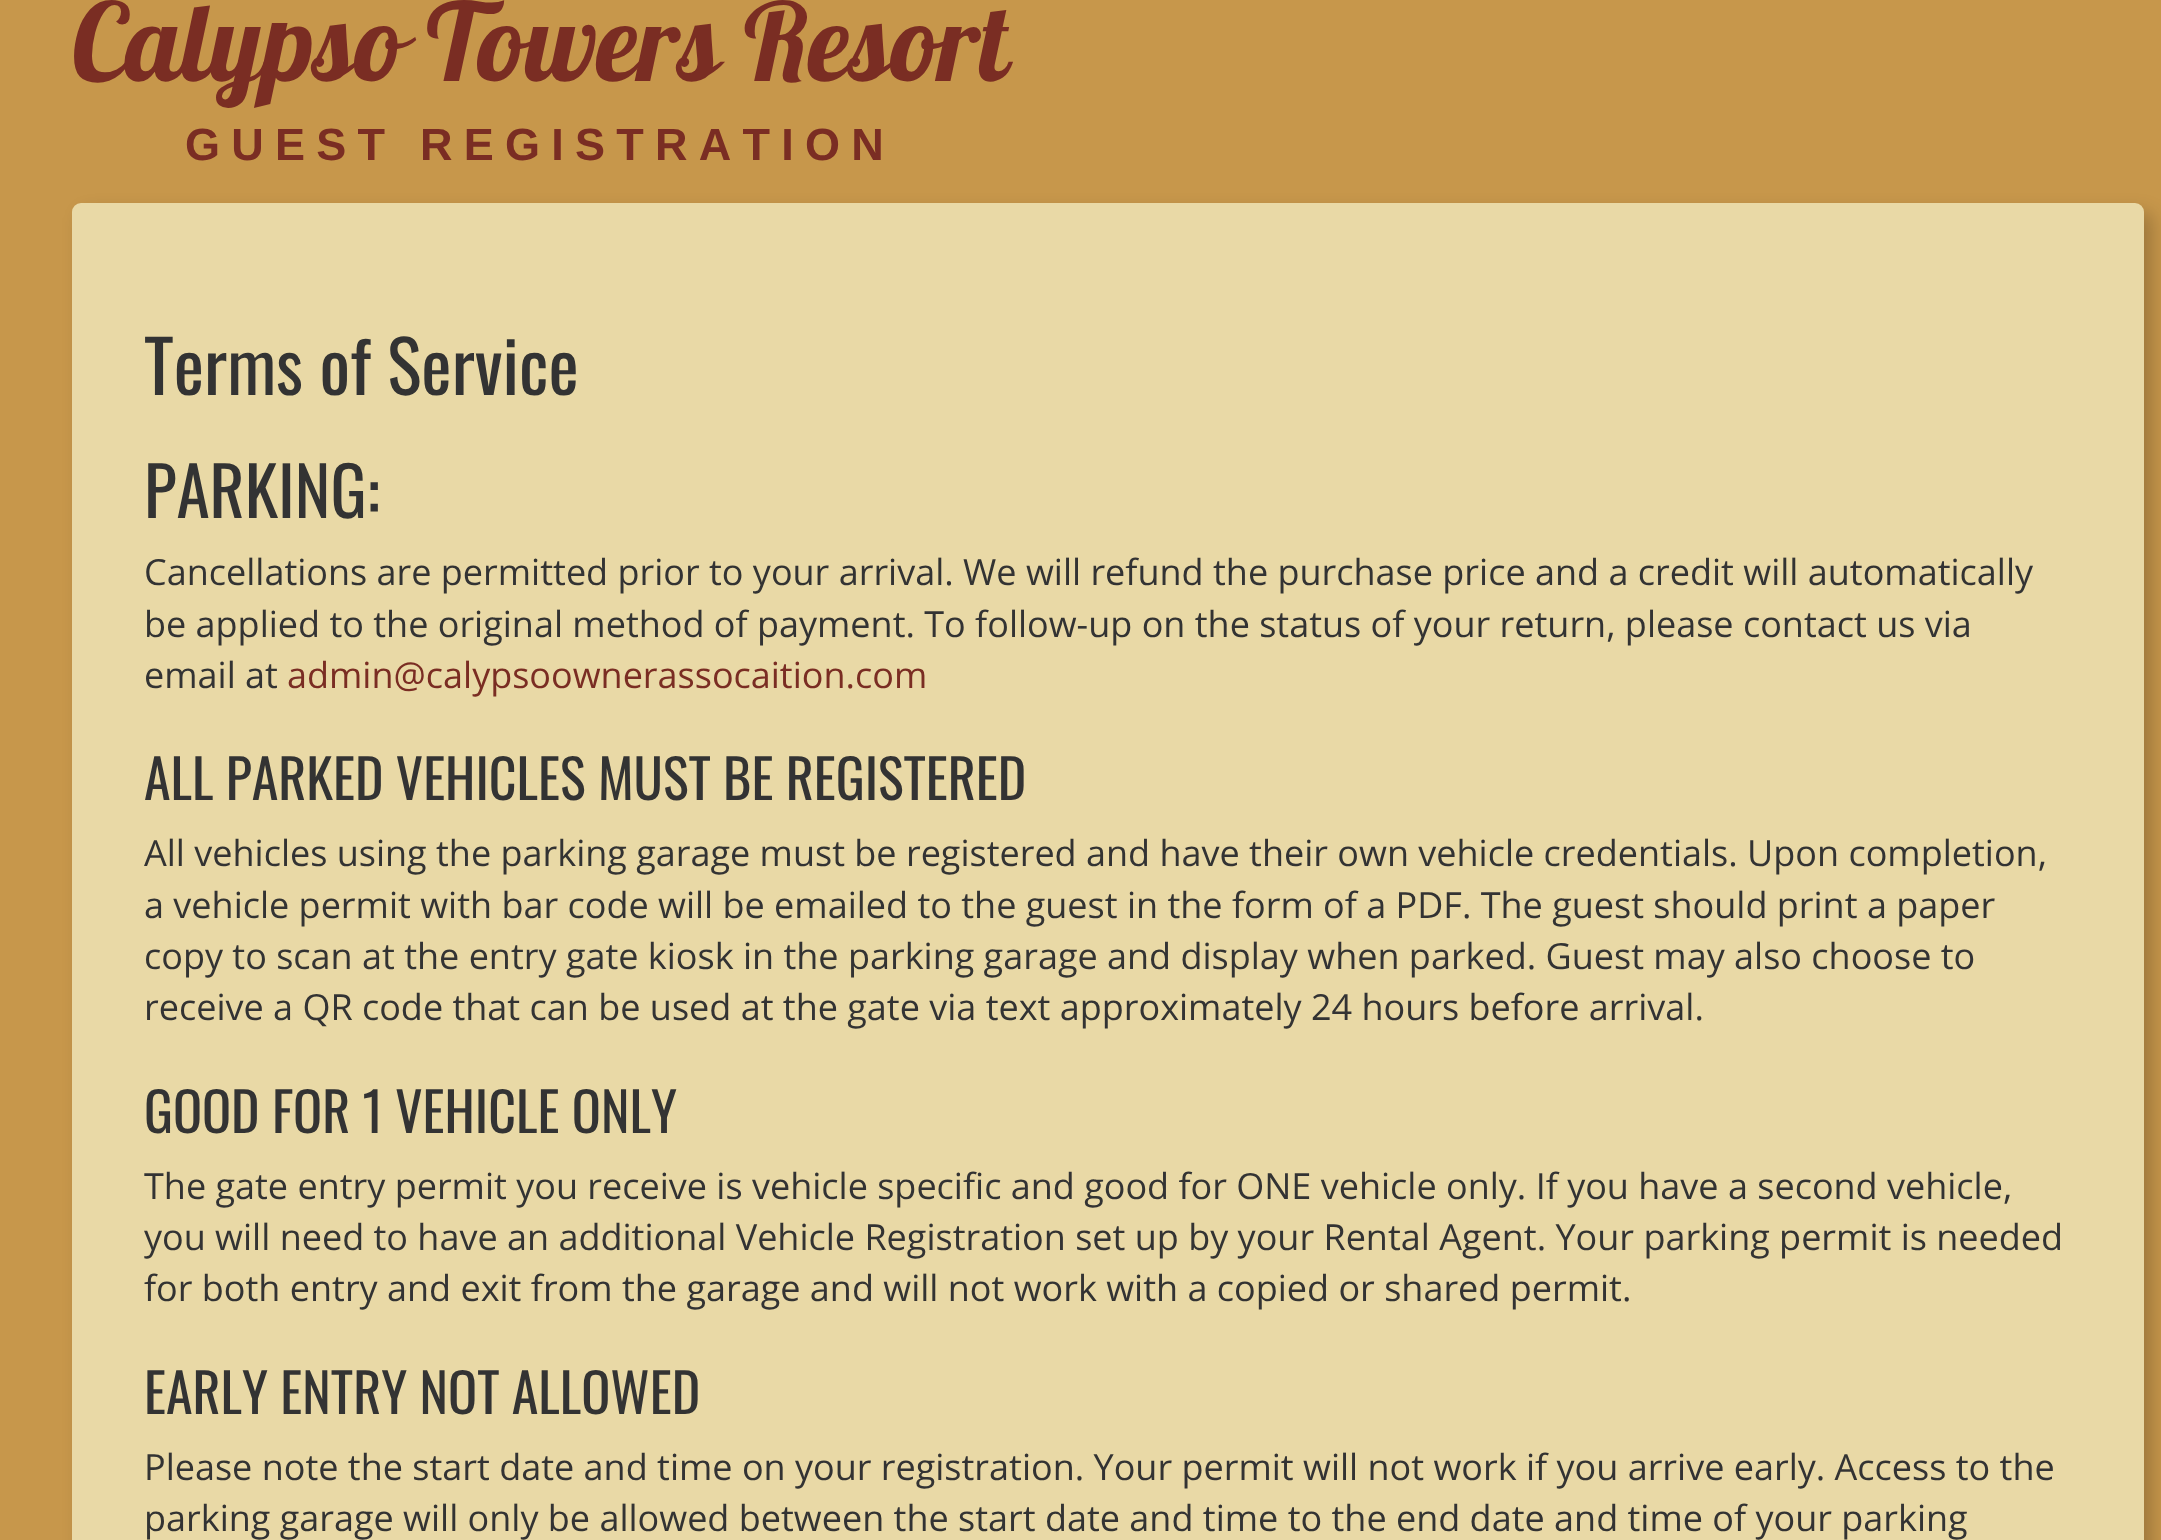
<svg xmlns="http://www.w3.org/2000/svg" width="2161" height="1540">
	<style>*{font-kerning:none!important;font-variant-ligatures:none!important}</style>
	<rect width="100%" height="100%" fill="#C7974B" />
	<text x="72" y="81" font-family="Lobster" font-size="108" fill="#7A2D23">Calypso Towers Resort</text>
	<text x="185" y="160" font-family="Liberation Sans" font-size="45" font-weight="700" letter-spacing="11.25" fill="#7A2D23">GUEST REGISTRATION</text>
	<rect x="81" y="212" width="2072" height="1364" rx="9" fill="#000000" fill-opacity="0.2" filter="blur(9px)" />
	<rect x="72" y="203" width="2072" height="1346" rx="9" fill="#E9D9A6" />
	<text x="144" y="395" font-family="Oswald" font-size="72" fill="#333333">Terms of Service</text>
	<text x="144" y="518" font-family="Oswald" font-size="67.5" fill="#333333">PARKING:</text>
	<g font-family="Open Sans" font-size="36" fill="#333333">
		<text x="144" y="585">Cancellations are permitted prior to your arrival. We will refund the purchase price and a credit will automatically</text>
		<text x="144" y="637">be applied to the original method of payment. To follow-up on the status of your return, please contact us via</text>
		<text x="144" y="688">email at</text>
	</g>
	<text x="287" y="688" font-family="Open Sans" font-size="36" fill="#7A2D23">admin@calypsoownerassocaition.com</text>
	<text x="144" y="800" font-family="Oswald" font-size="54" fill="#333333">ALL PARKED VEHICLES MUST BE REGISTERED</text>
	<g font-family="Open Sans" font-size="36" fill="#333333">
		<text x="144" y="866">All vehicles using the parking garage must be registered and have their own vehicle credentials. Upon completion,</text>
		<text x="144" y="918">a vehicle permit with bar code will be emailed to the guest in the form of a PDF. The guest should print a paper</text>
		<text x="144" y="969">copy to scan at the entry gate kiosk in the parking garage and display when parked. Guest may also choose to</text>
		<text x="144" y="1020">receive a QR code that can be used at the gate via text approximately 24 hours before arrival.</text>
	</g>
	<text x="144" y="1133" font-family="Oswald" font-size="54" fill="#333333">GOOD FOR 1 VEHICLE ONLY</text>
	<g font-family="Open Sans" font-size="36" fill="#333333">
		<text x="144" y="1199">The gate entry permit you receive is vehicle specific and good for ONE vehicle only. If you have a second vehicle,</text>
		<text x="144" y="1250">you will need to have an additional Vehicle Registration set up by your Rental Agent. Your parking permit is needed</text>
		<text x="144" y="1301">for both entry and exit from the garage and will not work with a copied or shared permit.</text>
	</g>
	<text x="144" y="1414" font-family="Oswald" font-size="54" fill="#333333">EARLY ENTRY NOT ALLOWED</text>
	<g font-family="Open Sans" font-size="36" fill="#333333">
		<text x="144" y="1480">Please note the start date and time on your registration. Your permit will not work if you arrive early. Access to the</text>
		<text x="144" y="1531">parking garage will only be allowed between the start date and time to the end date and time of your parking</text>
	</g>
</svg>
